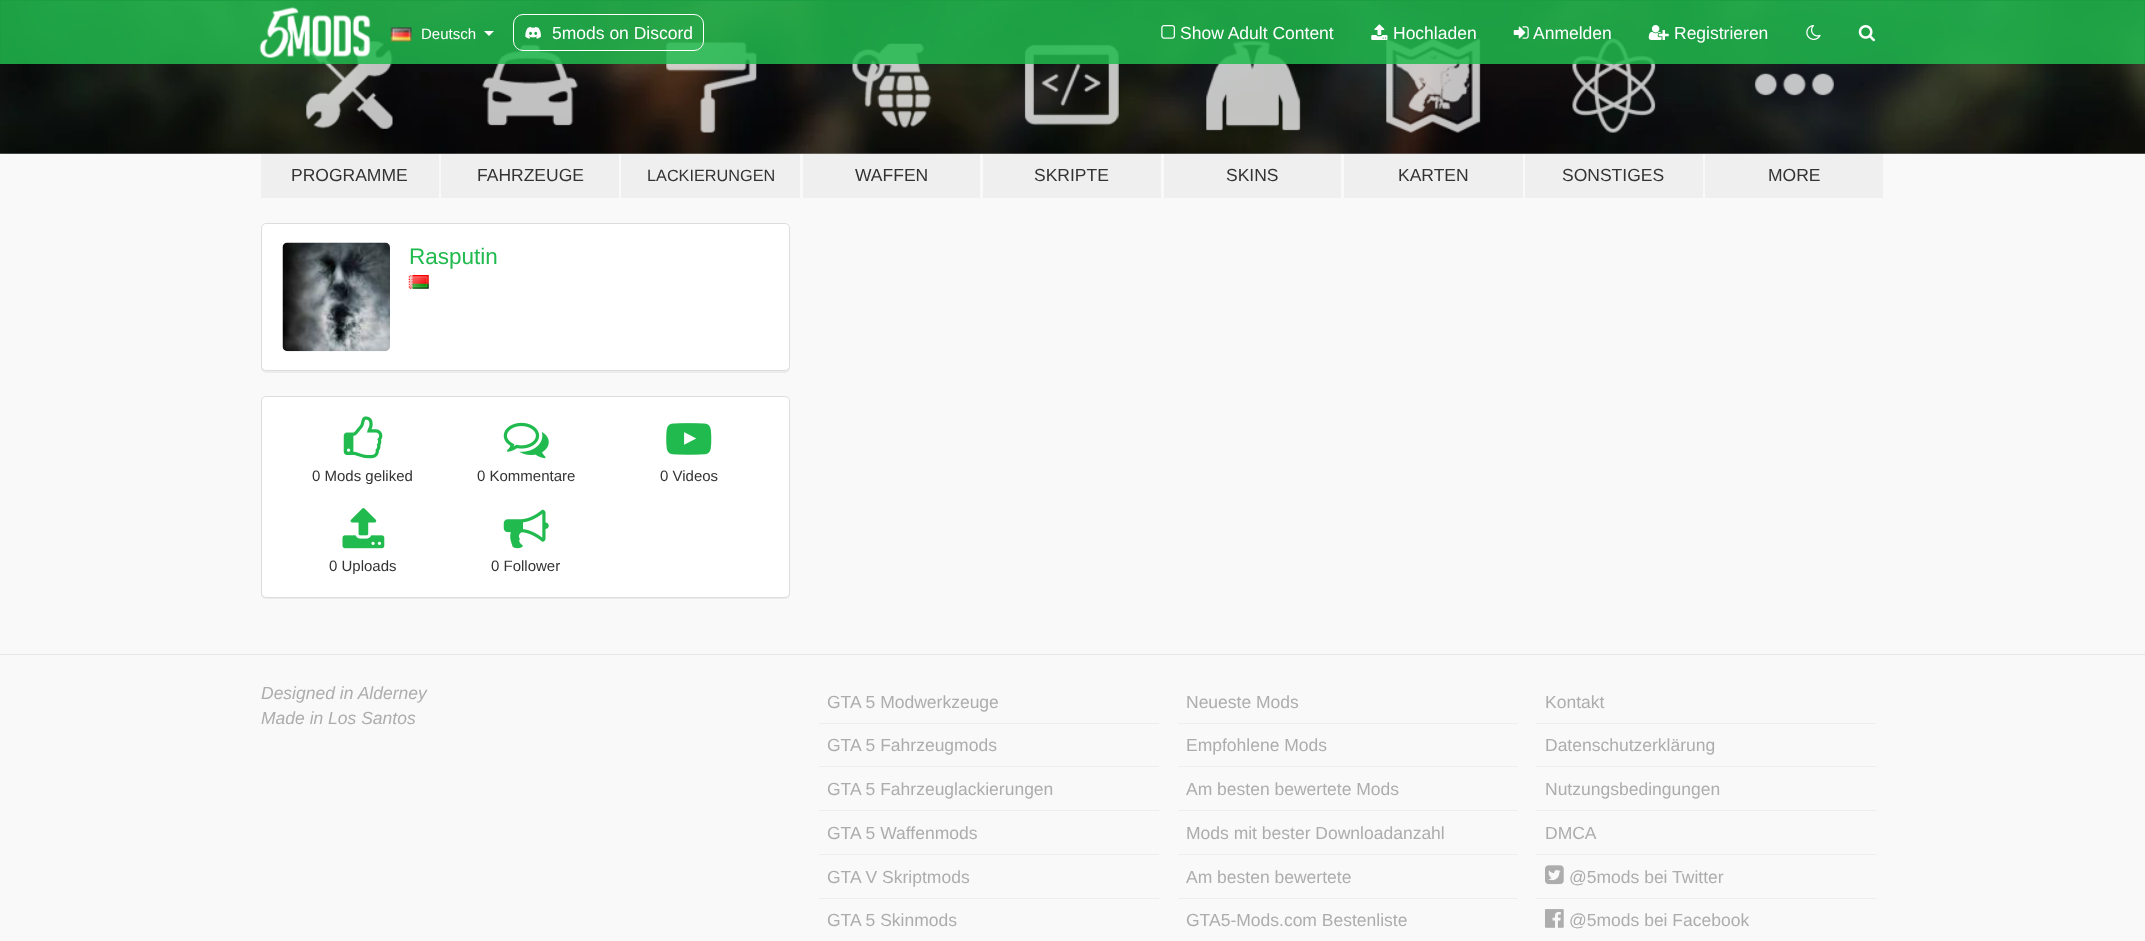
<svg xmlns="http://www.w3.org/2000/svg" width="2145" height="941">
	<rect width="100%" height="100%" fill="#F9F9F9" />
	<image x="0" y="1" width="2145" height="153" href="assets/img10.png" />
	<image x="306" y="41" width="87" height="88" href="assets/img11.png" />
	<image x="482" y="44" width="96" height="82" href="assets/img12.png" />
	<image x="666" y="42" width="91" height="91" href="assets/img13.png" />
	<image x="852" y="43" width="80" height="85" href="assets/img14.png" />
	<image x="1024" y="44" width="95" height="82" href="assets/img15.png" />
	<image x="1206" y="41" width="95" height="90" href="assets/img16.png" />
	<image x="1386" y="38" width="95" height="95" href="assets/img17.png" />
	<image x="1572" y="38" width="84" height="95" href="assets/img18.png" />
	<rect x="1" y="1" width="2143" height="63" fill="#20BA4E" fill-opacity="0.85" />
	<rect x="0" y="0" width="2145" height="1" fill="#1B9E42" />
	<rect x="2144" y="0" width="1" height="64" fill="#1B9E42" />
	<rect x="0" y="0" width="1" height="64" fill="#1B9E42" />
	<image x="259" y="7" width="112" height="51" href="assets/img1.png" />
	<image x="390" y="27" width="22" height="15" href="assets/img2.png" />
	<text x="421" y="39" font-family="Liberation Sans" font-size="15" fill="#FFFFFF">Deutsch</text>
	<path d="M484 31H494L489 36Z" fill="#FFFFFF" />
	<rect x="513.5" y="14.5" width="190" height="36" rx="9.5" fill="none" stroke="#FFFFFF" />
	<image x="525" y="26" width="16" height="13" href="assets/img3.png" />
	<text x="552" y="39" font-family="Liberation Sans" font-size="17.5" fill="#FFFFFF">5mods on Discord</text>
	<image x="1161" y="25" width="14" height="14" href="assets/img4.png" />
	<text x="1180" y="39" font-family="Liberation Sans" font-size="17.5" fill="#FFFFFF">Show Adult Content</text>
	<image x="1371" y="24" width="17" height="16" href="assets/img5.png" />
	<text x="1393" y="39" font-family="Liberation Sans" font-size="17.5" fill="#FFFFFF">Hochladen</text>
	<image x="1513" y="26" width="16" height="13" href="assets/img6.png" />
	<text x="1533" y="39" font-family="Liberation Sans" font-size="17.5" fill="#FFFFFF">Anmelden</text>
	<image x="1648" y="25" width="21" height="15" href="assets/img7.png" />
	<text x="1674" y="39" font-family="Liberation Sans" font-size="17.5" fill="#FFFFFF">Registrieren</text>
	<image x="1806" y="25" width="15" height="15" href="assets/img8.png" />
	<image x="1858" y="25" width="17" height="17" href="assets/img9.png" />
	<rect x="261" y="154" width="178" height="44" fill="#EFEFEF" />
	<text x="291" y="181" font-family="Liberation Sans" font-size="17.5" fill="#333333">PROGRAMME</text>
	<rect x="441" y="154" width="178" height="44" fill="#EFEFEF" />
	<text x="477" y="181" font-family="Liberation Sans" font-size="17.5" fill="#333333">FAHRZEUGE</text>
	<rect x="621" y="154" width="179" height="44" fill="#EFEFEF" />
	<text x="647" y="181" font-family="Liberation Sans" font-size="16.25" fill="#333333">LACKIERUNGEN</text>
	<rect x="803" y="154" width="177" height="44" fill="#EFEFEF" />
	<text x="855" y="181" font-family="Liberation Sans" font-size="17.5" fill="#333333">WAFFEN</text>
	<rect x="983" y="154" width="178" height="44" fill="#EFEFEF" />
	<text x="1034" y="181" font-family="Liberation Sans" font-size="17.5" fill="#333333">SKRIPTE</text>
	<rect x="1164" y="154" width="177" height="44" fill="#EFEFEF" />
	<text x="1226" y="181" font-family="Liberation Sans" font-size="17.5" fill="#333333">SKINS</text>
	<rect x="1344" y="154" width="179" height="44" fill="#EFEFEF" />
	<text x="1398" y="181" font-family="Liberation Sans" font-size="17.5" fill="#333333">KARTEN</text>
	<rect x="1525" y="154" width="178" height="44" fill="#EFEFEF" />
	<text x="1562" y="181" font-family="Liberation Sans" font-size="17.5" fill="#333333">SONSTIGES</text>
	<image x="1754" y="73" width="80" height="23" href="assets/img19.png" />
	<rect x="1705" y="154" width="178" height="44" fill="#EFEFEF" />
	<text x="1768" y="181" font-family="Liberation Sans" font-size="17.5" fill="#333333">MORE</text>
	<rect x="261" y="224" width="529" height="149" rx="5" fill="#000000" fill-opacity="0.05" filter="blur(0.5px)" />
	<rect x="261.5" y="223.5" width="528" height="147" rx="4.5" fill="#FFFFFF" stroke="#DDDDDD" />
	<image x="282" y="242" width="108" height="110" href="assets/img20.png" />
	<text x="409" y="264" font-family="Liberation Sans" font-size="22.5" fill="#20BA4E">Rasputin</text>
	<image x="408" y="275" width="21" height="14" href="assets/img21.png" />
	<rect x="261" y="398" width="529" height="201" rx="5" fill="#000000" fill-opacity="0.05" filter="blur(0.5px)" />
	<rect x="261.5" y="396.5" width="528" height="201" rx="4.5" fill="#FFFFFF" stroke="#DDDDDD" />
	<image x="343" y="416" width="40" height="43" href="assets/img22.png" />
	<text x="312" y="481" font-family="Liberation Sans" font-size="15" fill="#333333">0 Mods geliked</text>
	<image x="503" y="422" width="46" height="37" href="assets/img23.png" />
	<text x="477" y="481" font-family="Liberation Sans" font-size="15" fill="#333333">0 Kommentare</text>
	<image x="666" y="423" width="46" height="32" href="assets/img24.png" />
	<text x="660" y="481" font-family="Liberation Sans" font-size="15" fill="#333333">0 Videos</text>
	<image x="342" y="508" width="43" height="41" href="assets/img25.png" />
	<text x="329" y="571" font-family="Liberation Sans" font-size="15" fill="#333333">0 Uploads</text>
	<image x="503" y="509" width="46" height="40" href="assets/img26.png" />
	<text x="491" y="571" font-family="Liberation Sans" font-size="15" fill="#333333">0 Follower</text>
	<rect x="0" y="654" width="2145" height="1" fill="#E7E7E7" />
	<g font-family="Liberation Sans" font-size="17.5" font-style="italic" fill="#ADADAD">
		<text x="261" y="699">Designed in Alderney</text>
		<text x="261" y="724">Made in Los Santos</text>
	</g>
	<rect x="819" y="723" width="340" height="1" fill="#EEEEEE" />
	<text x="827" y="708" font-family="Liberation Sans" font-size="17.5" fill="#ADADAD">GTA 5 Modwerkzeuge</text>
	<rect x="819" y="766" width="340" height="1" fill="#EEEEEE" />
	<text x="827" y="751" font-family="Liberation Sans" font-size="17.5" fill="#ADADAD">GTA 5 Fahrzeugmods</text>
	<rect x="819" y="810" width="340" height="1" fill="#EEEEEE" />
	<text x="827" y="795" font-family="Liberation Sans" font-size="17.5" fill="#ADADAD">GTA 5 Fahrzeuglackierungen</text>
	<rect x="819" y="854" width="340" height="1" fill="#EEEEEE" />
	<text x="827" y="839" font-family="Liberation Sans" font-size="17.5" fill="#ADADAD">GTA 5 Waffenmods</text>
	<rect x="819" y="898" width="340" height="1" fill="#EEEEEE" />
	<g font-family="Liberation Sans" font-size="17.5" fill="#ADADAD">
		<text x="827" y="883">GTA V Skriptmods</text>
		<text x="827" y="926">GTA 5 Skinmods</text>
	</g>
	<rect x="1178" y="723" width="340" height="1" fill="#EEEEEE" />
	<text x="1186" y="708" font-family="Liberation Sans" font-size="17.5" fill="#ADADAD">Neueste Mods</text>
	<rect x="1178" y="766" width="340" height="1" fill="#EEEEEE" />
	<text x="1186" y="751" font-family="Liberation Sans" font-size="17.5" fill="#ADADAD">Empfohlene Mods</text>
	<rect x="1178" y="810" width="340" height="1" fill="#EEEEEE" />
	<text x="1186" y="795" font-family="Liberation Sans" font-size="17.5" fill="#ADADAD">Am besten bewertete Mods</text>
	<rect x="1178" y="854" width="340" height="1" fill="#EEEEEE" />
	<text x="1186" y="839" font-family="Liberation Sans" font-size="17.5" fill="#ADADAD">Mods mit bester Downloadanzahl</text>
	<rect x="1178" y="898" width="340" height="1" fill="#EEEEEE" />
	<g font-family="Liberation Sans" font-size="17.5" fill="#ADADAD">
		<text x="1186" y="883">Am besten bewertete</text>
		<text x="1186" y="926">GTA5-Mods.com Bestenliste</text>
	</g>
	<rect x="1536" y="723" width="340" height="1" fill="#EEEEEE" />
	<text x="1545" y="708" font-family="Liberation Sans" font-size="17.5" fill="#ADADAD">Kontakt</text>
	<rect x="1536" y="766" width="340" height="1" fill="#EEEEEE" />
	<text x="1545" y="751" font-family="Liberation Sans" font-size="17.5" fill="#ADADAD">Datenschutzerklärung</text>
	<rect x="1536" y="810" width="340" height="1" fill="#EEEEEE" />
	<text x="1545" y="795" font-family="Liberation Sans" font-size="17.5" fill="#ADADAD">Nutzungsbedingungen</text>
	<rect x="1536" y="854" width="340" height="1" fill="#EEEEEE" />
	<text x="1545" y="839" font-family="Liberation Sans" font-size="17.5" fill="#ADADAD">DMCA</text>
	<rect x="1536" y="898" width="340" height="1" fill="#EEEEEE" />
	<image x="1545" y="865" width="19" height="20" href="assets/img27.png" />
	<text x="1569" y="883" font-family="Liberation Sans" font-size="17.5" fill="#ADADAD">@5mods bei Twitter</text>
	<image x="1545" y="909" width="19" height="19" href="assets/img28.png" />
	<text x="1569" y="926" font-family="Liberation Sans" font-size="17.5" fill="#ADADAD">@5mods bei Facebook</text>
</svg>
